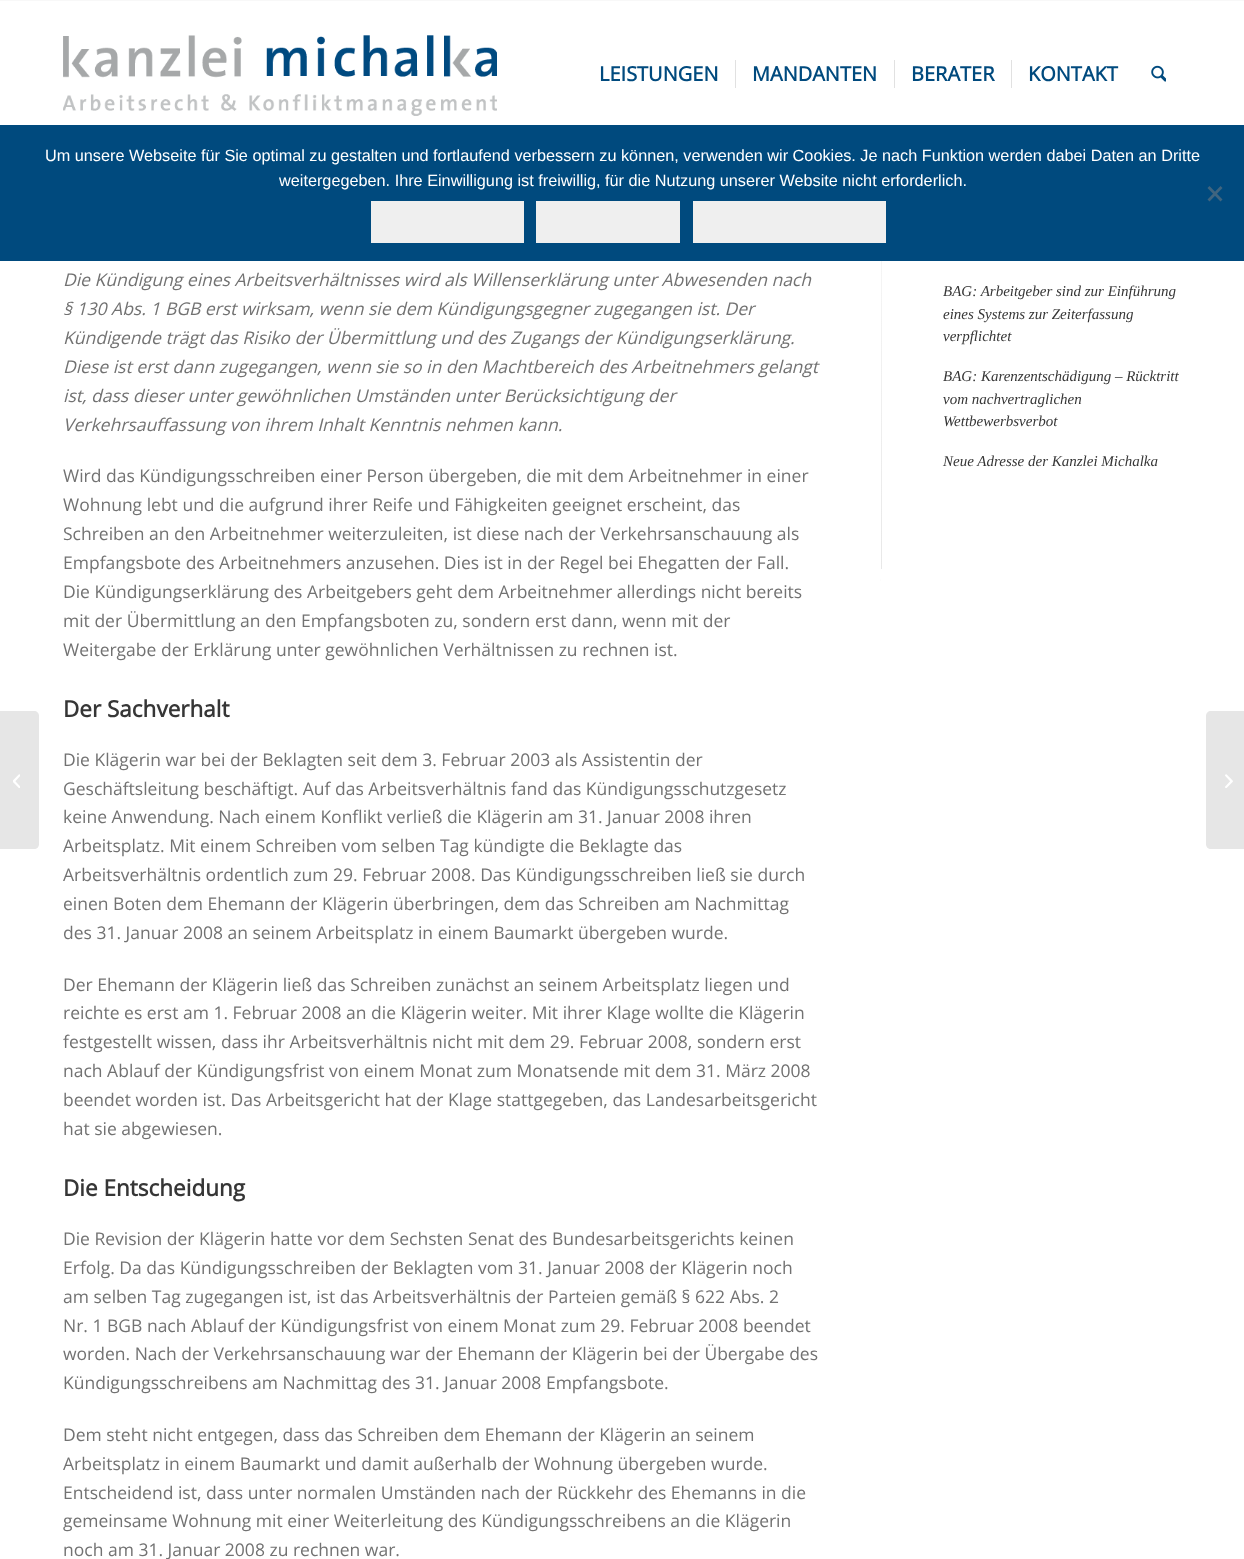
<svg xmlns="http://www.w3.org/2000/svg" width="1244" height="1559">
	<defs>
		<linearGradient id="g1" gradientUnits="userSpaceOnUse" x1="882" y1="569" x2="882" y2="18"><stop offset="0" stop-color="#E8E8E8" /><stop offset="1" stop-color="#FFFFFF" /></linearGradient>
		<linearGradient id="g2" gradientUnits="userSpaceOnUse" x1="881" y1="1070" x2="881" y2="519"><stop offset="0" stop-color="#E8E8E8" /><stop offset="1" stop-color="#FFFFFF" /></linearGradient>
	</defs>
	<rect width="100%" height="100%" fill="#FFFFFF" />
	<rect x="0" y="0" width="1244" height="1" fill="#F8F8F8" />
	<image x="63" y="35" width="434" height="81" href="assets/img1.png" />
	<g font-family="Open Sans" font-size="20" font-weight="700" fill="#004A7E">
		<text x="599" y="81">LEISTUNGEN</text>
		<text x="752" y="81">MANDANTEN</text>
	</g>
	<rect x="735" y="60" width="1" height="28" fill="#E1E1E1" />
	<text x="911" y="81" font-family="Open Sans" font-size="20" font-weight="700" fill="#004A7E">BERATER</text>
	<rect x="894" y="60" width="1" height="28" fill="#E1E1E1" />
	<text x="1028" y="81" font-family="Open Sans" font-size="20" font-weight="700" fill="#004A7E">KONTAKT</text>
	<rect x="1011" y="60" width="1" height="28" fill="#E1E1E1" />
	<image x="1151" y="65" width="15" height="17" href="assets/img2.png" />
	<rect x="881" y="78" width="1" height="491" fill="url(#g1)" />
	<rect x="881" y="78" width="1" height="47" fill="#FFFFFF" fill-opacity="0.95" />
	<path d="M0 711H34C37 711 39 713 39 716V844C39 847 37 849 34 849H0Z" fill="#E6E6E6" />
	<image x="13" y="774" width="7" height="14" href="assets/img3.png" />
	<g font-family="Open Sans" font-size="17.5" font-style="italic" fill="#727272">
		<text x="63" y="286">Die Kündigung eines Arbeitsverhältnisses wird als Willenserklärung unter Abwesenden nach</text>
		<text x="63" y="315">§ 130 Abs. 1 BGB erst wirksam, wenn sie dem Kündigungsgegner zugegangen ist. Der</text>
		<text x="63" y="344">Kündigende trägt das Risiko der Übermittlung und des Zugangs der Kündigungserklärung.</text>
		<text x="63" y="373">Diese ist erst dann zugegangen, wenn sie so in den Machtbereich des Arbeitnehmers gelangt</text>
		<text x="63" y="402">ist, dass dieser unter gewöhnlichen Umständen unter Berücksichtigung der</text>
		<text x="63" y="431">Verkehrsauffassung von ihrem Inhalt Kenntnis nehmen kann.</text>
	</g>
	<g font-family="Open Sans" font-size="17.5" fill="#727272">
		<text x="63" y="482">Wird das Kündigungsschreiben einer Person übergeben, die mit dem Arbeitnehmer in einer</text>
		<text x="63" y="511">Wohnung lebt und die aufgrund ihrer Reife und Fähigkeiten geeignet erscheint, das</text>
		<text x="63" y="540">Schreiben an den Arbeitnehmer weiterzuleiten, ist diese nach der Verkehrsanschauung als</text>
		<text x="63" y="569">Empfangsbote des Arbeitnehmers anzusehen. Dies ist in der Regel bei Ehegatten der Fall.</text>
		<text x="63" y="598">Die Kündigungserklärung des Arbeitgebers geht dem Arbeitnehmer allerdings nicht bereits</text>
		<text x="63" y="627">mit der Übermittlung an den Empfangsboten zu, sondern erst dann, wenn mit der</text>
		<text x="63" y="656">Weitergabe der Erklärung unter gewöhnlichen Verhältnissen zu rechnen ist.</text>
	</g>
	<text x="63" y="717" font-family="Open Sans" font-size="22.5" font-weight="700" fill="#363636">Der Sachverhalt</text>
	<g font-family="Open Sans" font-size="17.5" fill="#727272">
		<text x="63" y="766">Die Klägerin war bei der Beklagten seit dem 3. Februar 2003 als Assistentin der</text>
		<text x="63" y="795">Geschäftsleitung beschäftigt. Auf das Arbeitsverhältnis fand das Kündigungsschutzgesetz</text>
		<text x="63" y="823">keine Anwendung. Nach einem Konflikt verließ die Klägerin am 31. Januar 2008 ihren</text>
		<text x="63" y="852">Arbeitsplatz. Mit einem Schreiben vom selben Tag kündigte die Beklagte das</text>
		<text x="63" y="881">Arbeitsverhältnis ordentlich zum 29. Februar 2008. Das Kündigungsschreiben ließ sie durch</text>
		<text x="63" y="910">einen Boten dem Ehemann der Klägerin überbringen, dem das Schreiben am Nachmittag</text>
		<text x="63" y="939">des 31. Januar 2008 an seinem Arbeitsplatz in einem Baumarkt übergeben wurde.</text>
		<text x="63" y="991">Der Ehemann der Klägerin ließ das Schreiben zunächst an seinem Arbeitsplatz liegen und</text>
		<text x="63" y="1019">reichte es erst am 1. Februar 2008 an die Klägerin weiter. Mit ihrer Klage wollte die Klägerin</text>
		<text x="63" y="1048">festgestellt wissen, dass ihr Arbeitsverhältnis nicht mit dem 29. Februar 2008, sondern erst</text>
		<text x="63" y="1077">nach Ablauf der Kündigungsfrist von einem Monat zum Monatsende mit dem 31. März 2008</text>
		<text x="63" y="1106">beendet worden ist. Das Arbeitsgericht hat der Klage stattgegeben, das Landesarbeitsgericht</text>
		<text x="63" y="1135">hat sie abgewiesen.</text>
	</g>
	<text x="63" y="1196" font-family="Open Sans" font-size="22.5" font-weight="700" fill="#363636">Die Entscheidung</text>
	<g font-family="Open Sans" font-size="17.5" fill="#727272">
		<text x="63" y="1245">Die Revision der Klägerin hatte vor dem Sechsten Senat des Bundesarbeitsgerichts keinen</text>
		<text x="63" y="1274">Erfolg. Da das Kündigungsschreiben der Beklagten vom 31. Januar 2008 der Klägerin noch</text>
		<text x="63" y="1303">am selben Tag zugegangen ist, ist das Arbeitsverhältnis der Parteien gemäß § 622 Abs. 2</text>
		<text x="63" y="1332">Nr. 1 BGB nach Ablauf der Kündigungsfrist von einem Monat zum 29. Februar 2008 beendet</text>
		<text x="63" y="1360">worden. Nach der Verkehrsanschauung war der Ehemann der Klägerin bei der Übergabe des</text>
		<text x="63" y="1389">Kündigungsschreibens am Nachmittag des 31. Januar 2008 Empfangsbote.</text>
		<text x="63" y="1441">Dem steht nicht entgegen, dass das Schreiben dem Ehemann der Klägerin an seinem</text>
		<text x="63" y="1470">Arbeitsplatz in einem Baumarkt und damit außerhalb der Wohnung übergeben wurde.</text>
		<text x="63" y="1499">Entscheidend ist, dass unter normalen Umständen nach der Rückkehr des Ehemanns in die</text>
		<text x="63" y="1527">gemeinsame Wohnung mit einer Weiterleitung des Kündigungsschreibens an die Klägerin</text>
		<text x="63" y="1556">noch am 31. Januar 2008 zu rechnen war.</text>
	</g>
	<g font-family="Liberation Serif" font-size="15" font-style="italic" fill="#363636">
		<text x="943" y="296">BAG: Arbeitgeber sind zur Einführung</text>
		<text x="943" y="319">eines Systems zur Zeiterfassung</text>
		<text x="943" y="341">verpflichtet</text>
		<text x="943" y="381">BAG: Karenzentschädigung – Rücktritt</text>
		<text x="943" y="404">vom nachvertraglichen</text>
		<text x="943" y="426">Wettbewerbsverbot</text>
		<text x="943" y="466">Neue Adresse der Kanzlei Michalka</text>
	</g>
	<rect x="880" y="579" width="1" height="2" fill="url(#g2)" />
	<path d="M1211 711H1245V849H1211C1208 849 1206 847 1206 844V716C1206 713 1208 711 1211 711Z" fill="#E6E6E6" />
	<image x="1225" y="774" width="8" height="14" href="assets/img4.png" />
	<rect x="0" y="125" width="1244" height="136" fill="#004A7E" />
	<g font-family="Liberation Sans" font-size="16.25" fill="#FFFFFF">
		<text x="45" y="161">Um unsere Webseite für Sie optimal zu gestalten und fortlaufend verbessern zu können, verwenden wir Cookies. Je nach Funktion werden dabei Daten an Dritte</text>
		<text x="279" y="186">weitergegeben. Ihre Einwilligung ist freiwillig, für die Nutzung unserer Website nicht erforderlich.</text>
	</g>
	<path d="M1220.5 186L1222.5 188L1209.5 201.5L1207.5 199.5Z" fill="#40657F" />
	<path d="M1207.5 188L1209.5 186L1222.5 199.5L1220.5 201.5Z" fill="#40657F" />
	<rect x="371" y="201" width="153" height="42" fill="#EFEFEF" />
	<rect x="536" y="201" width="144" height="42" fill="#EFEFEF" />
	<rect x="693" y="201" width="193" height="42" fill="#EFEFEF" />
</svg>
